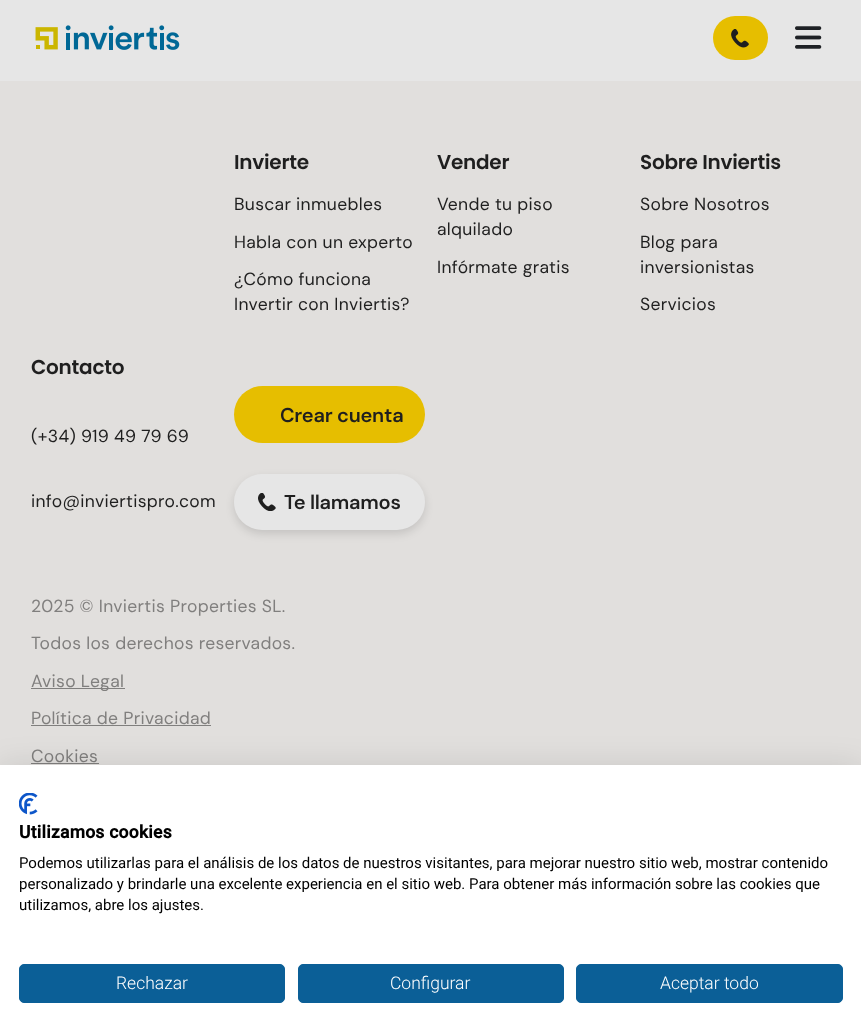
<svg xmlns="http://www.w3.org/2000/svg" width="861" height="1036">
	<rect width="100%" height="100%" fill="#E6E6E6" />
	<image x="35" y="25" width="145" height="25" href="assets/img1.png" />
	<rect x="713" y="16" width="55" height="44" rx="22" fill="#E6BE00" />
	<image x="731" y="29" width="18" height="19" href="assets/img2.png" />
	<image x="795" y="26" width="27" height="23" href="assets/img3.png" />
	<rect x="0" y="81" width="861" height="684" fill="#E1DFDD" />
	<text x="234" y="169" font-family="Poppins" font-size="20" font-weight="600" letter-spacing="-0.25" fill="#1F1F1F">Invierte</text>
	<g font-family="DM Sans" font-size="17.5" letter-spacing="0.3" fill="#1F1F1F">
		<text x="234" y="210">Buscar inmuebles</text>
		<text x="234" y="248">Habla con un experto</text>
		<text x="234" y="285">¿Cómo funciona</text>
		<text x="234" y="310">Invertir con Inviertis?</text>
	</g>
	<text x="437" y="169" font-family="Poppins" font-size="20" font-weight="600" letter-spacing="-0.25" fill="#1F1F1F">Vender</text>
	<g font-family="DM Sans" font-size="17.5" letter-spacing="0.3" fill="#1F1F1F">
		<text x="437" y="210">Vende tu piso</text>
		<text x="437" y="235">alquilado</text>
		<text x="437" y="273">Infórmate gratis</text>
	</g>
	<text x="640" y="169" font-family="Poppins" font-size="20" font-weight="600" letter-spacing="-0.25" fill="#1F1F1F">Sobre Inviertis</text>
	<g font-family="DM Sans" font-size="17.5" letter-spacing="0.3" fill="#1F1F1F">
		<text x="640" y="210">Sobre Nosotros</text>
		<text x="640" y="248">Blog para</text>
		<text x="640" y="273">inversionistas</text>
		<text x="640" y="310">Servicios</text>
	</g>
	<text x="31" y="374" font-family="Poppins" font-size="20" font-weight="600" letter-spacing="-0.25" fill="#1F1F1F">Contacto</text>
	<g font-family="DM Sans" font-size="17.5" letter-spacing="0.3" fill="#1F1F1F">
		<text x="31" y="442">(+34) 919 49 79 69</text>
		<text x="31" y="507">info@inviertispro.com</text>
	</g>
	<rect x="234" y="386" width="191" height="57" rx="28.5" fill="#E6BE00" />
	<text x="280" y="422" font-family="DM Sans" font-size="20" font-weight="600" letter-spacing="-0.25" fill="#1F1F1F">Crear cuenta</text>
	<rect x="234" y="478" width="191" height="56" rx="28" fill="#000000" fill-opacity="0.12" filter="blur(4px)" />
	<rect x="234" y="474" width="191" height="56" rx="28" fill="#E6E6E6" />
	<image x="258" y="493" width="18" height="18" href="assets/img4.png" />
	<text x="284" y="509" font-family="DM Sans" font-size="20" font-weight="600" letter-spacing="-0.25" fill="#1F1F1F">Te llamamos</text>
	<g font-family="DM Sans" font-size="17.5" letter-spacing="0.3" fill="#807F7E">
		<text x="31" y="612">2025 © Inviertis Properties SL.</text>
		<text x="31" y="649">Todos los derechos reservados.</text>
	</g>
	<rect x="31" y="688" width="94" height="1" fill="#807F7E" />
	<g font-family="DM Sans" font-size="17.5" letter-spacing="0.3" fill="#807F7E">
		<text x="31" y="687">Aviso Legal</text>
		<text x="31" y="724">Política de Privacidad</text>
	</g>
	<rect x="31" y="725" width="180" height="1" fill="#807F7E" />
	<text x="31" y="762" font-family="DM Sans" font-size="17.5" letter-spacing="0.3" fill="#807F7E">Cookies</text>
	<rect x="31" y="763" width="68" height="1" fill="#807F7E" />
	<rect x="0" y="765" width="861" height="271" fill="#000000" fill-opacity="0.1" filter="blur(15px)" />
	<rect x="0" y="765" width="861" height="271" fill="#FFFFFF" />
	<image x="19" y="793" width="19" height="22" href="assets/img5.png" />
	<text x="19" y="838" font-family="Roboto" font-size="17.5" font-weight="700" letter-spacing="0.25" fill="#000000">Utilizamos cookies</text>
	<g font-family="Roboto" font-size="15" fill="#000000">
		<text x="19" y="868">Podemos utilizarlas para el análisis de los datos de nuestros visitantes, para mejorar nuestro sitio web, mostrar contenido</text>
		<text x="19" y="889">personalizado y brindarle una excelente experiencia en el sitio web. Para obtener más información sobre las cookies que</text>
		<text x="19" y="910">utilizamos, abre los ajustes.</text>
	</g>
	<rect x="19.5" y="964.5" width="265" height="38" rx="4.5" fill="#0B5F97" stroke="#0B5F97" />
	<text x="116" y="989" font-family="Roboto" font-size="17.5" font-weight="300" fill="#FFFFFF">Rechazar</text>
	<rect x="298.5" y="964.5" width="265" height="38" rx="4.5" fill="#0B5F97" stroke="#0B5F97" />
	<text x="390" y="989" font-family="Roboto" font-size="17.5" font-weight="300" fill="#FFFFFF">Configurar</text>
	<rect x="576.5" y="964.5" width="266" height="38" rx="4.5" fill="#0B5F97" stroke="#0B5F97" />
	<text x="660" y="989" font-family="Roboto" font-size="17.5" font-weight="300" fill="#FFFFFF">Aceptar todo</text>
</svg>
